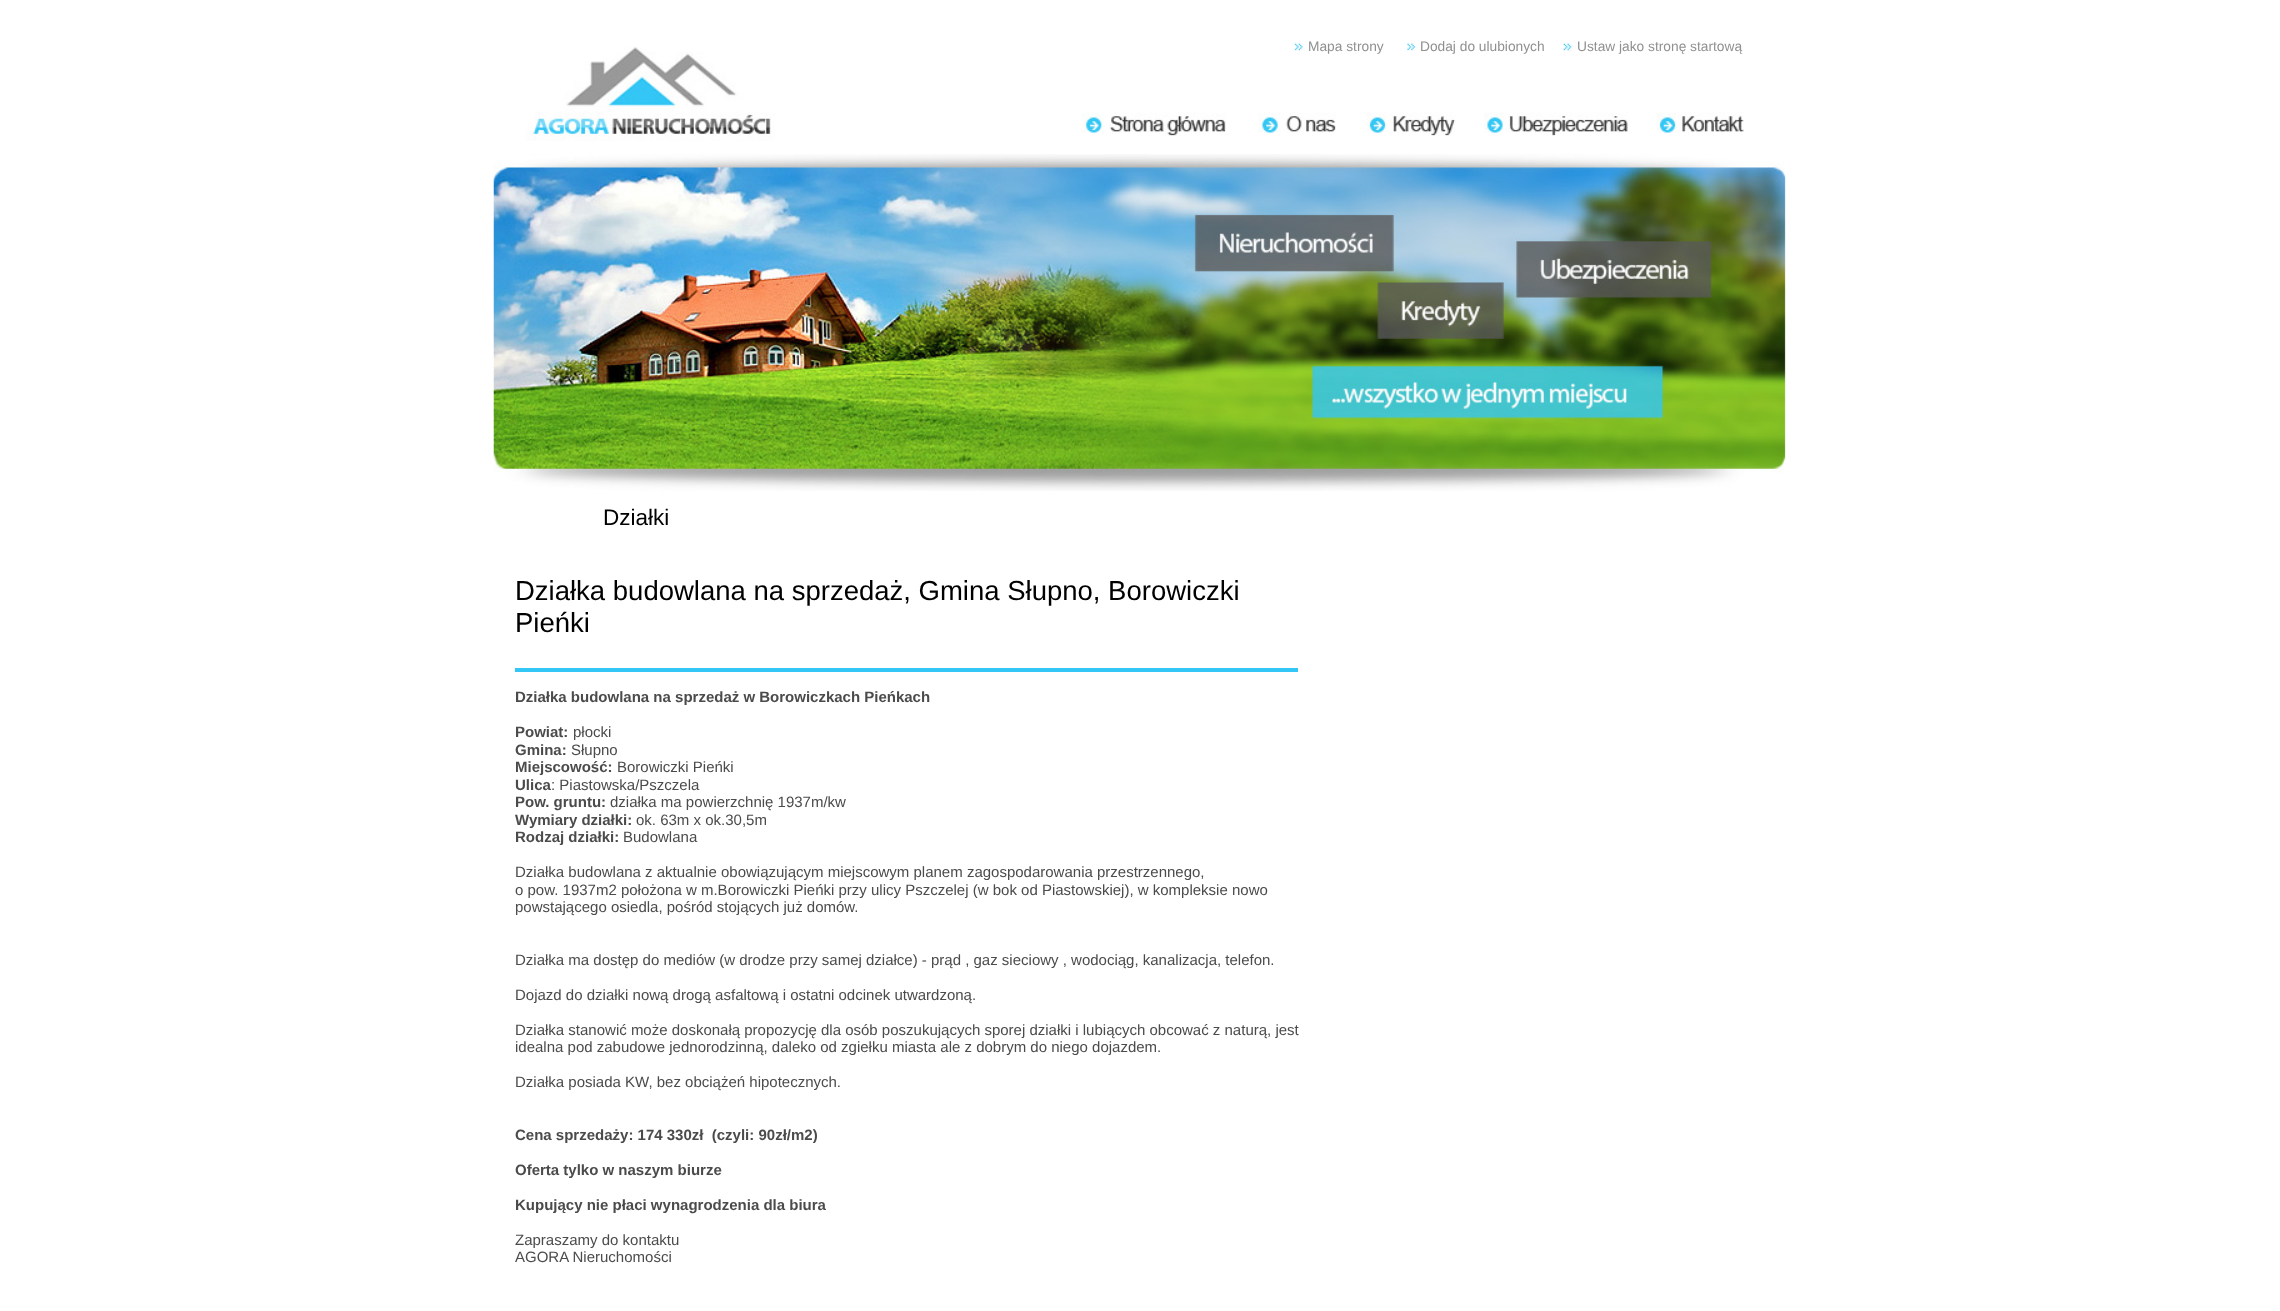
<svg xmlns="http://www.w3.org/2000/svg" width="2280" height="1311">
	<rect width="100%" height="100%" fill="#FFFFFF" />
	<image x="525" y="47" width="250" height="94" href="assets/img1.png" />
	<image x="1294" y="42" width="10" height="9" href="assets/img2.png" />
	<text x="1308" y="51" font-family="Liberation Sans" font-size="13.75" fill="#909090">Mapa strony</text>
	<image x="1406" y="42" width="10" height="9" href="assets/img3.png" />
	<text x="1420" y="51" font-family="Liberation Sans" font-size="13.75" fill="#909090">Dodaj do ulubionych</text>
	<image x="1563" y="42" width="10" height="9" href="assets/img4.png" />
	<text x="1577" y="51" font-family="Liberation Sans" font-size="13.75" fill="#909090">Ustaw jako stronę startową</text>
	<image x="1081" y="112" width="145" height="24" href="assets/img5.png" />
	<image x="1257" y="112" width="79" height="21" href="assets/img6.png" />
	<image x="1366" y="112" width="90" height="24" href="assets/img7.png" />
	<image x="1483" y="112" width="145" height="24" href="assets/img8.png" />
	<image x="1656" y="112" width="88" height="21" href="assets/img9.png" />
	<image x="493" y="154" width="1293" height="337" href="assets/img10.png" />
	<text x="603" y="525" font-family="Liberation Sans" font-size="22.5" fill="#000000">Działki</text>
	<g font-family="Liberation Sans" font-size="27.5" fill="#000000">
		<text x="515" y="600">Działka budowlana na sprzedaż, Gmina Słupno, Borowiczki</text>
		<text x="515" y="632">Pieńki</text>
	</g>
	<rect x="515" y="668" width="783" height="4" fill="#34C6F5" />
	<g font-family="Liberation Sans" font-size="15" font-weight="700" fill="#4B4B4B">
		<text x="515" y="702">Działka budowlana na sprzedaż w Borowiczkach Pieńkach</text>
		<text x="515" y="737">Powiat:</text>
	</g>
	<text x="573" y="737" font-family="Liberation Sans" font-size="15" fill="#4B4B4B">płocki</text>
	<text x="515" y="755" font-family="Liberation Sans" font-size="15" font-weight="700" fill="#4B4B4B">Gmina:</text>
	<text x="571" y="755" font-family="Liberation Sans" font-size="15" fill="#4B4B4B">Słupno</text>
	<text x="515" y="772" font-family="Liberation Sans" font-size="15" font-weight="700" fill="#4B4B4B">Miejscowość:</text>
	<text x="617" y="772" font-family="Liberation Sans" font-size="15" fill="#4B4B4B">Borowiczki Pieńki</text>
	<text x="515" y="790" font-family="Liberation Sans" font-size="15" font-weight="700" fill="#4B4B4B">Ulica</text>
	<text x="551" y="790" font-family="Liberation Sans" font-size="15" fill="#4B4B4B">: Piastowska/Pszczela</text>
	<text x="515" y="807" font-family="Liberation Sans" font-size="15" font-weight="700" fill="#4B4B4B">Pow. gruntu:</text>
	<text x="610" y="807" font-family="Liberation Sans" font-size="15" fill="#4B4B4B">działka ma powierzchnię 1937m/kw</text>
	<text x="515" y="825" font-family="Liberation Sans" font-size="15" font-weight="700" fill="#4B4B4B">Wymiary działki:</text>
	<text x="636" y="825" font-family="Liberation Sans" font-size="15" fill="#4B4B4B">ok. 63m x ok.30,5m</text>
	<text x="515" y="842" font-family="Liberation Sans" font-size="15" font-weight="700" fill="#4B4B4B">Rodzaj działki:</text>
	<g font-family="Liberation Sans" font-size="15" fill="#4B4B4B">
		<text x="623" y="842">Budowlana</text>
		<text x="515" y="877">Działka budowlana z aktualnie obowiązującym miejscowym planem zagospodarowania przestrzennego,</text>
		<text x="515" y="895">o pow. 1937m2 położona w m.Borowiczki Pieńki przy ulicy Pszczelej (w bok od Piastowskiej), w kompleksie nowo</text>
		<text x="515" y="912">powstającego osiedla, pośród stojących już domów.</text>
		<text x="515" y="965">Działka ma dostęp do mediów (w drodze przy samej działce) - prąd , gaz sieciowy , wodociąg, kanalizacja, telefon.</text>
		<text x="515" y="1000">Dojazd do działki nową drogą asfaltową i ostatni odcinek utwardzoną.</text>
		<text x="515" y="1035">Działka stanowić może doskonałą propozycję dla osób poszukujących sporej działki i lubiących obcować z naturą, jest</text>
		<text x="515" y="1052">idealna pod zabudowe jednorodzinną, daleko od zgiełku miasta ale z dobrym do niego dojazdem.</text>
		<text x="515" y="1087">Działka posiada KW, bez obciążeń hipotecznych.</text>
	</g>
	<g font-family="Liberation Sans" font-size="15" font-weight="700" fill="#4B4B4B">
		<text x="515" y="1140" xml:space="preserve">Cena sprzedaży: 174 330zł  (czyli: 90zł/m2)</text>
		<text x="515" y="1175">Oferta tylko w naszym biurze</text>
		<text x="515" y="1210">Kupujący nie płaci wynagrodzenia dla biura</text>
	</g>
	<g font-family="Liberation Sans" font-size="15" fill="#4B4B4B">
		<text x="515" y="1245">Zapraszamy do kontaktu</text>
		<text x="515" y="1262">AGORA Nieruchomości</text>
	</g>
</svg>
